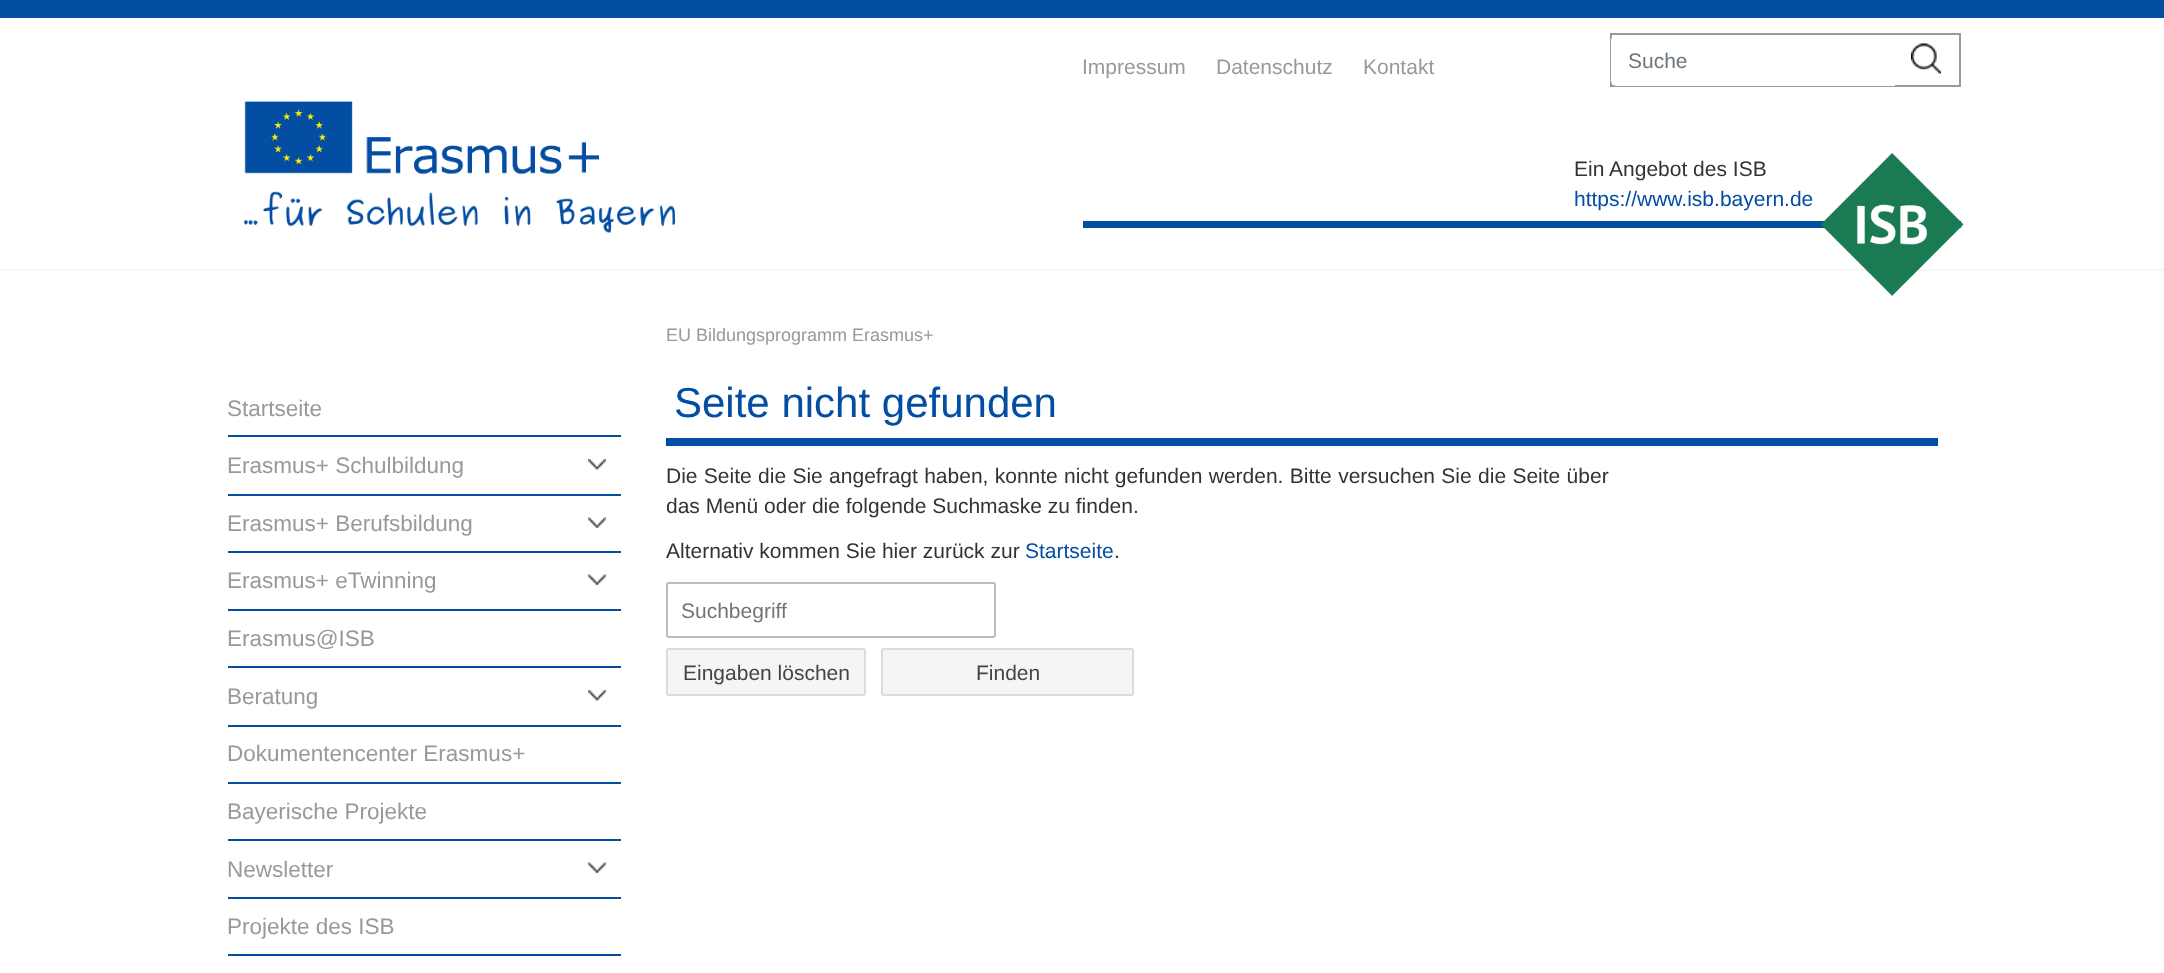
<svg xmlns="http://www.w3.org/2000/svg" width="2164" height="973">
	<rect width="100%" height="100%" fill="#FFFFFF" />
	<rect x="0" y="0" width="2164" height="18" fill="#034DA2" />
	<rect x="0" y="269" width="2164" height="2" fill="#F5F6F8" />
	<image x="243" y="101" width="432" height="132" href="assets/img1.png" />
	<rect x="1083" y="221" width="878" height="7" fill="#034DA2" />
	<g font-family="Liberation Sans" font-size="21" fill="#999999">
		<text x="1082" y="74">Impressum</text>
		<text x="1216" y="74">Datenschutz</text>
		<text x="1363" y="74">Kontakt</text>
	</g>
	<rect x="1611" y="34" width="349" height="52" fill="none" stroke="#999999" stroke-width="2" />
	<path d="M1617 35H1895V86H1617C1613.5 86 1611 83.5 1611 80V41C1611 37.5 1613.5 35 1617 35Z" fill="#FFFFFF" />
	<text x="1628" y="68" font-family="Liberation Sans" font-size="21" fill="#6C757D">Suche</text>
	<image x="1911" y="43" width="30" height="31" href="assets/img2.png" />
	<text x="1574" y="176" font-family="Liberation Sans" font-size="21" fill="#333333">Ein Angebot des ISB</text>
	<text x="1574" y="206" font-family="Liberation Sans" font-size="21" fill="#034DA2">https://www.isb.bayern.de</text>
	<image x="1820" y="153" width="144" height="143" href="assets/img3.png" />
	<rect x="228" y="435" width="393" height="2" fill="#034DA2" />
	<text x="227" y="416" font-family="Liberation Sans" font-size="22.5" fill="#999999">Startseite</text>
	<image x="588" y="459" width="18" height="11" href="assets/img4.png" />
	<rect x="228" y="494" width="393" height="2" fill="#034DA2" />
	<text x="227" y="473" font-family="Liberation Sans" font-size="22.5" fill="#999999">Erasmus+ Schulbildung</text>
	<image x="588" y="517" width="18" height="11" href="assets/img5.png" />
	<rect x="228" y="551" width="393" height="2" fill="#034DA2" />
	<text x="227" y="531" font-family="Liberation Sans" font-size="22.5" fill="#999999">Erasmus+ Berufsbildung</text>
	<image x="588" y="574" width="18" height="11" href="assets/img5.png" />
	<rect x="228" y="609" width="393" height="2" fill="#034DA2" />
	<text x="227" y="588" font-family="Liberation Sans" font-size="22.5" fill="#999999">Erasmus+ eTwinning</text>
	<rect x="228" y="666" width="393" height="2" fill="#034DA2" />
	<text x="227" y="646" font-family="Liberation Sans" font-size="22.5" fill="#999999">Erasmus@ISB</text>
	<image x="588" y="690" width="18" height="11" href="assets/img4.png" />
	<rect x="228" y="725" width="393" height="2" fill="#034DA2" />
	<text x="227" y="704" font-family="Liberation Sans" font-size="22.5" fill="#999999">Beratung</text>
	<rect x="228" y="782" width="393" height="2" fill="#034DA2" />
	<text x="227" y="761" font-family="Liberation Sans" font-size="22.5" fill="#999999">Dokumentencenter Erasmus+</text>
	<rect x="228" y="839" width="393" height="2" fill="#034DA2" />
	<text x="227" y="819" font-family="Liberation Sans" font-size="22.5" fill="#999999">Bayerische Projekte</text>
	<image x="588" y="862" width="18" height="11" href="assets/img5.png" />
	<rect x="228" y="897" width="393" height="2" fill="#034DA2" />
	<text x="227" y="877" font-family="Liberation Sans" font-size="22.5" fill="#999999">Newsletter</text>
	<rect x="228" y="954" width="393" height="2" fill="#034DA2" />
	<text x="227" y="934" font-family="Liberation Sans" font-size="22.5" fill="#999999">Projekte des ISB</text>
	<text x="666" y="341" font-family="Liberation Sans" font-size="18" fill="#999999">EU Bildungsprogramm Erasmus+</text>
	<rect x="666" y="438" width="1272" height="8" fill="#034DA2" />
	<text x="674" y="417" font-family="Liberation Sans" font-size="42" fill="#034DA2">Seite nicht gefunden</text>
	<g font-family="Liberation Sans" font-size="21" fill="#333333">
		<text x="666" y="483" word-spacing="0.5">Die Seite die Sie angefragt haben, konnte nicht gefunden werden. Bitte versuchen Sie die Seite über</text>
		<text x="666" y="513">das Menü oder die folgende Suchmaske zu finden.</text>
		<text x="666" y="558">Alternativ kommen Sie hier zurück zur</text>
	</g>
	<text x="1025" y="558" font-family="Liberation Sans" font-size="21" fill="#034DA2">Startseite</text>
	<text x="1114" y="558" font-family="Liberation Sans" font-size="21" fill="#333333">.</text>
	<rect x="667" y="583" width="328" height="54" rx="2" fill="none" stroke="#BBBBBB" stroke-width="2" />
	<text x="681" y="618" font-family="Liberation Sans" font-size="21" fill="#757575">Suchbegriff</text>
	<rect x="666" y="648" width="200" height="48" rx="3" fill="#F5F5F5" />
	<rect x="667" y="649" width="198" height="46" rx="2" fill="none" stroke="#000000" stroke-opacity="0.1" stroke-width="2" />
	<text x="683" y="680" font-family="Liberation Sans" font-size="21" fill="#444444">Eingaben löschen</text>
	<rect x="881" y="648" width="253" height="48" rx="3" fill="#F5F5F5" />
	<rect x="882" y="649" width="251" height="46" rx="2" fill="none" stroke="#000000" stroke-opacity="0.1" stroke-width="2" />
	<text x="976" y="680" font-family="Liberation Sans" font-size="21" fill="#444444">Finden</text>
</svg>
